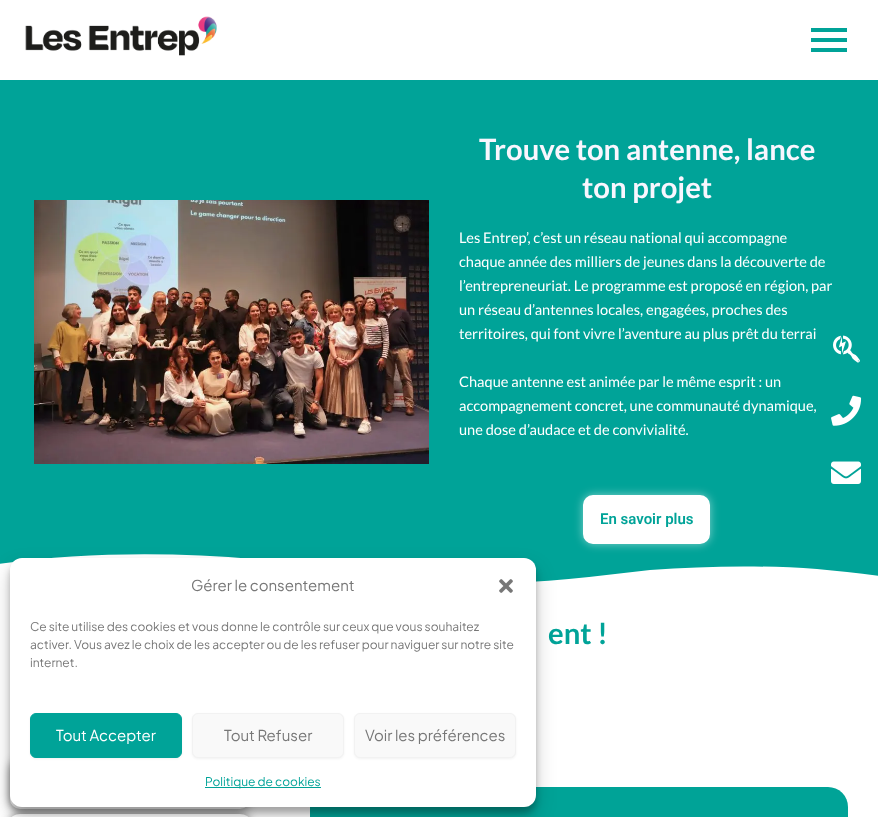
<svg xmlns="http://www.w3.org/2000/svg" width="878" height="817">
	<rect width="100%" height="100%" fill="#FFFFFF" />
	<image x="25" y="16" width="192" height="40" href="assets/img1.png" />
	<rect x="811" y="28" width="36" height="4" fill="#00A398" />
	<rect x="811" y="38" width="36" height="4" fill="#00A398" />
	<rect x="811" y="48" width="36" height="4" fill="#00A398" />
	<rect x="0" y="80" width="878" height="502" fill="#00A398" />
	<image x="34" y="200" width="395" height="264" href="assets/img2.png" />
	<g font-family="Lato" font-size="29.25" font-weight="700" fill="#F9F6FE">
		<text x="479" y="160">Trouve ton antenne, lance</text>
		<text x="582" y="198">ton projet</text>
	</g>
	<g font-family="Lato" font-size="14.6" fill="#FFFFFF">
		<text x="459" y="243">Les Entrep’, c’est un réseau national qui accompagne</text>
		<text x="459" y="267">chaque année des milliers de jeunes dans la découverte de</text>
		<text x="459" y="291">l’entrepreneuriat. Le programme est proposé en région, par</text>
		<text x="459" y="315">un réseau d’antennes locales, engagées, proches des</text>
		<text x="459" y="339">territoires, qui font vivre l’aventure au plus prêt du terrai</text>
		<text x="459" y="387">Chaque antenne est animée par le même esprit : un</text>
		<text x="459" y="411">accompagnement concret, une communauté dynamique,</text>
		<text x="459" y="435">une dose d’audace et de convivialité.</text>
	</g>
	<path d="M508 583C432 586 358 570 284 562C190 552 93 551-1 564V585H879V576C858 573 837 571 817 569C762 565 706 566 650 570L589 577C562 580 535 582 508 583Z" fill="#FFFFFF" />
	<rect x="583" y="495" width="127" height="49" rx="10" fill="#FFFFFF" fill-opacity="0.5" filter="blur(5px)" />
	<rect x="584" y="496" width="125" height="47" rx="9" fill="#FFFFFF" stroke="#FFFFFF" stroke-width="2" />
	<text x="600" y="524" font-family="Roboto" font-size="15" font-weight="600" fill="#00A398">En savoir plus</text>
	<text x="548" y="644" font-family="Lato" font-size="29.25" font-weight="700" fill="#00A398">ent !</text>
	<rect x="10" y="760" width="240" height="49" rx="10" fill="#000000" fill-opacity="0.5" filter="blur(5px)" />
	<rect x="10" y="760" width="240" height="49" rx="10" fill="#FFFFFF" />
	<rect x="10" y="814" width="240" height="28" rx="10" fill="#000000" fill-opacity="0.5" filter="blur(5px)" />
	<rect x="10" y="814" width="240" height="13" rx="10" fill="#FFFFFF" />
	<image x="310" y="787" width="538" height="30" href="assets/img3.png" />
	<image x="833" y="335" width="27" height="28" href="assets/img4.png" />
	<image x="831" y="395" width="31" height="31" href="assets/img5.png" />
	<image x="831" y="461" width="30" height="23" href="assets/img6.png" />
	<rect x="10" y="564" width="526" height="249" rx="12" fill="#000000" fill-opacity="0.23" filter="blur(3px)" />
	<rect x="10" y="568" width="526" height="249" rx="12" fill="#000000" fill-opacity="0.19" filter="blur(10px)" />
	<rect x="10" y="558" width="526" height="249" rx="12" fill="#FFFFFF" />
	<text x="191" y="591" font-family="Plus Jakarta Sans" font-size="15" fill="#777777">Gérer le consentement</text>
	<image x="499" y="579" width="14" height="14" href="assets/img7.png" />
	<g font-family="Plus Jakarta Sans" font-size="12" fill="#777777">
		<text x="30" y="631">Ce site utilise des cookies et vous donne le contrôle sur ceux que vous souhaitez</text>
		<text x="30" y="649">activer. Vous avez le choix de les accepter ou de les refuser pour naviguer sur notre site</text>
		<text x="30" y="667">internet.</text>
	</g>
	<rect x="30" y="714" width="152" height="45" rx="6" fill="#000000" fill-opacity="0.05" filter="blur(1px)" />
	<rect x="30.5" y="713.5" width="151" height="44" rx="5.5" fill="#00A398" stroke="#00A398" />
	<text x="56" y="741" font-family="Plus Jakarta Sans" font-size="15" fill="#FFFFFF">Tout Accepter</text>
	<rect x="192" y="714" width="152" height="45" rx="6" fill="#000000" fill-opacity="0.05" filter="blur(1px)" />
	<rect x="192.5" y="713.5" width="151" height="44" rx="5.5" fill="#F9F9F9" stroke="#F2F2F2" />
	<text x="224" y="741" font-family="Plus Jakarta Sans" font-size="15" fill="#777777">Tout Refuser</text>
	<rect x="354" y="714" width="162" height="45" rx="6" fill="#000000" fill-opacity="0.05" filter="blur(1px)" />
	<rect x="354.5" y="713.5" width="161" height="44" rx="5.5" fill="#F9F9F9" stroke="#F2F2F2" />
	<text x="365" y="741" font-family="Plus Jakarta Sans" font-size="15" fill="#777777">Voir les préférences</text>
	<rect x="205" y="787" width="116" height="1" fill="#00A398" />
	<text x="205" y="786" font-family="Plus Jakarta Sans" font-size="12" fill="#00A398">Politique de cookies</text>
</svg>
